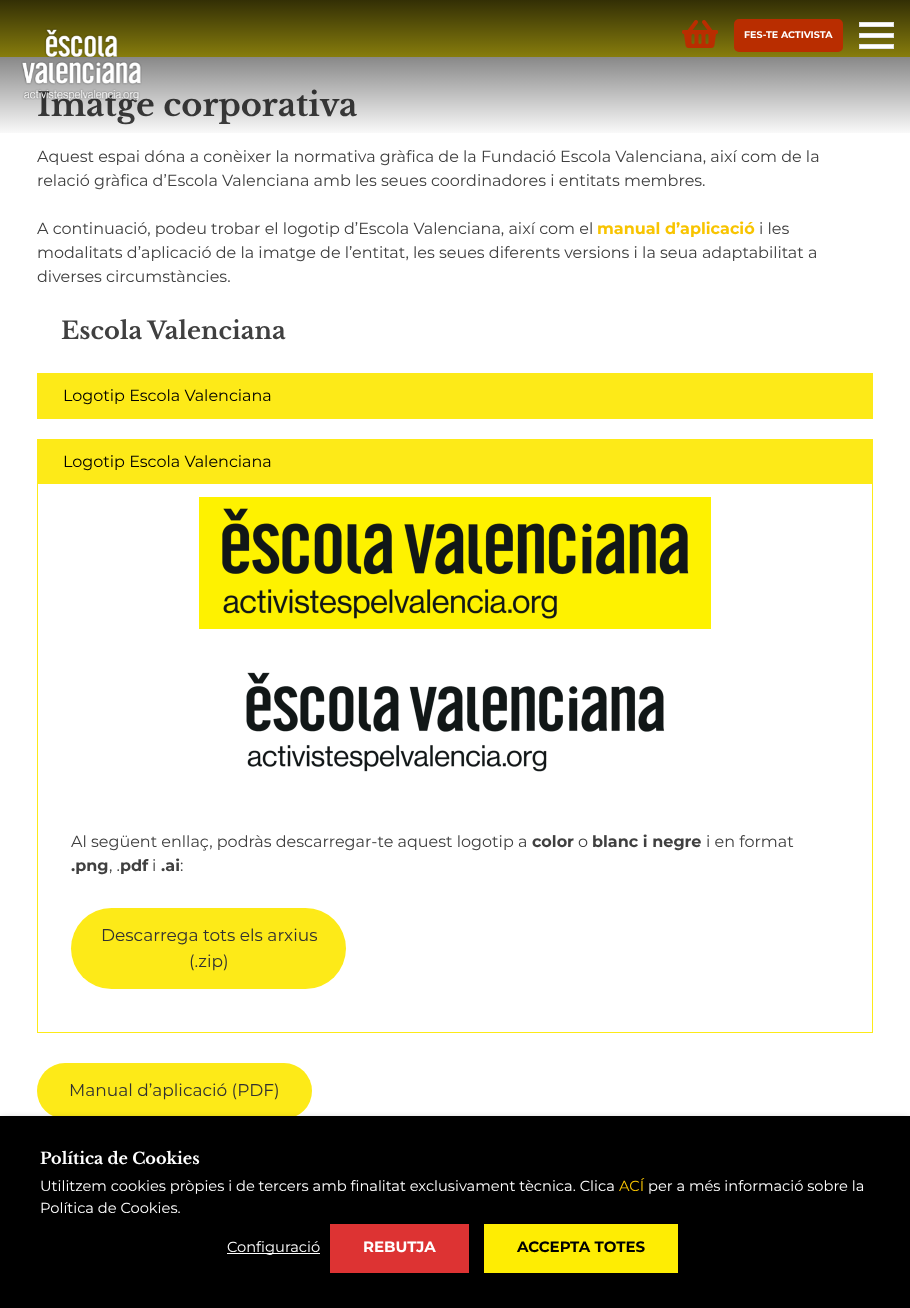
<svg xmlns="http://www.w3.org/2000/svg" width="910" height="1308">
	<defs>
		<linearGradient id="g1" gradientUnits="userSpaceOnUse" x1="455" y1="0" x2="455" y2="137"><stop offset="0" stop-color="#000000" stop-opacity="0.8" /><stop offset="1" stop-color="#000000" stop-opacity="0" /></linearGradient>
	</defs>
	<rect width="100%" height="100%" fill="#FFFFFF" />
	<rect x="0" y="0" width="910" height="57" fill="#FDEA18" />
	<text x="37" y="116" font-family="Libre Baskerville" font-size="32" font-weight="700" fill="#404040">Imatge corporativa</text>
	<rect x="0" y="0" width="910" height="133" fill="url(#g1)" />
	<image x="21" y="28" width="121" height="74" href="assets/img1.png" />
	<image x="682" y="20" width="36" height="28" href="assets/img2.png" />
	<rect x="734" y="19" width="109" height="33" rx="5" fill="#B92D00" />
	<text x="744" y="38" font-family="Montserrat" font-size="9.5" font-weight="700" fill="#FFFFFF">FES-TE ACTIVISTA</text>
	<rect x="859.5" y="22.5" width="34" height="4" fill="#FFFFFF" stroke="#E2E2E2" />
	<rect x="859.5" y="33.5" width="34" height="4" fill="#FFFFFF" stroke="#E2E2E2" />
	<rect x="859.5" y="44.5" width="34" height="4" fill="#FFFFFF" stroke="#E2E2E2" />
	<g font-family="Montserrat" font-size="16" fill="#404040">
		<text x="37" y="162">Aquest espai dóna a conèixer la normativa gràfica de la Fundació Escola Valenciana, així com de la</text>
		<text x="37" y="186">relació gràfica d’Escola Valenciana amb les seues coordinadores i entitats membres.</text>
		<text x="37" y="234">A continuació, podeu trobar el logotip d’Escola Valenciana, així com el</text>
	</g>
	<text x="597" y="234" font-family="Montserrat" font-size="16" font-weight="700" fill="#F8C400">manual d’aplicació</text>
	<g font-family="Montserrat" font-size="16" fill="#404040">
		<text x="759" y="234">i les</text>
		<text x="37" y="258">modalitats d’aplicació de la imatge de l’entitat, les seues diferents versions i la seua adaptabilitat a</text>
		<text x="37" y="282">diverses circumstàncies.</text>
	</g>
	<text x="61" y="339" font-family="Libre Baskerville" font-size="24" font-weight="700" fill="#404040">Escola Valenciana</text>
	<rect x="37.5" y="373.5" width="835" height="45" fill="none" stroke="#FDEA18" />
	<rect x="38" y="374" width="834" height="44" fill="#FDEA18" />
	<text x="63" y="401" font-family="Montserrat" font-size="16" fill="#000000">Logotip Escola Valenciana</text>
	<rect x="37.5" y="439.5" width="835" height="593" fill="none" stroke="#FDEA18" />
	<rect x="38" y="440" width="834" height="44" fill="#FDEA18" />
	<text x="63" y="467" font-family="Montserrat" font-size="16" fill="#000000">Logotip Escola Valenciana</text>
	<image x="199" y="497" width="512" height="132" href="assets/img3.png" />
	<image x="246" y="672" width="419" height="100" href="assets/img4.png" />
	<text x="71" y="847" font-family="Montserrat" font-size="16" fill="#404040">Al següent enllaç, podràs descarregar-te aquest logotip a</text>
	<text x="532" y="847" font-family="Montserrat" font-size="16" font-weight="700" fill="#404040">color</text>
	<text x="578" y="847" font-family="Montserrat" font-size="16" fill="#404040">o</text>
	<text x="592" y="847" font-family="Montserrat" font-size="16" font-weight="700" fill="#404040">blanc i negre</text>
	<text x="706" y="847" font-family="Montserrat" font-size="16" fill="#404040">i en format</text>
	<text x="71" y="871" font-family="Montserrat" font-size="16" font-weight="700" fill="#404040">.png</text>
	<text x="109" y="871" font-family="Montserrat" font-size="16" fill="#404040">, .</text>
	<text x="120" y="871" font-family="Montserrat" font-size="16" font-weight="700" fill="#404040">pdf</text>
	<text x="152" y="871" font-family="Montserrat" font-size="16" fill="#404040">i</text>
	<text x="161" y="871" font-family="Montserrat" font-size="16" font-weight="700" fill="#404040">.ai</text>
	<text x="180" y="871" font-family="Montserrat" font-size="16" fill="#404040">:</text>
	<rect x="71" y="908" width="275" height="81" rx="40.5" fill="#FDEA18" />
	<g font-family="Montserrat" font-size="17" fill="#313131">
		<text x="101" y="941">Descarrega tots els arxius</text>
		<text x="189" y="967">(.zip)</text>
	</g>
	<rect x="37" y="1063" width="275" height="56" rx="28" fill="#FDEA18" />
	<text x="69" y="1096" font-family="Montserrat" font-size="17" fill="#313131">Manual d’aplicació (PDF)</text>
	<rect x="0" y="1121" width="910" height="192" fill="#000000" fill-opacity="0.5" filter="blur(5px)" />
	<rect x="0" y="1116" width="910" height="192" fill="#000000" />
	<text x="40" y="1164" font-family="Libre Baskerville" font-size="16" font-weight="700" fill="#FFFFFF">Política de Cookies</text>
	<text x="40" y="1191" font-family="Montserrat" font-size="14.65" fill="#FFFFFF">Utilitzem cookies pròpies i de tercers amb finalitat exclusivament tècnica. Clica</text>
	<text x="619" y="1191" font-family="Montserrat" font-size="14.65" fill="#F8C400">ACÍ</text>
	<g font-family="Montserrat" font-size="14.65" fill="#FFFFFF">
		<text x="648" y="1191">per a més informació sobre la</text>
		<text x="40" y="1213">Política de Cookies.</text>
	</g>
	<rect x="227" y="1253" width="93" height="1" fill="#FFFFFF" />
	<text x="227" y="1252" font-family="Montserrat" font-size="14.65" fill="#FFFFFF">Configuració</text>
	<rect x="330" y="1224" width="139" height="49" fill="#DD3333" />
	<text x="363" y="1252" font-family="Montserrat" font-size="15" font-weight="700" fill="#FFFFFF">REBUTJA</text>
	<rect x="484" y="1224" width="194" height="49" fill="#FEED03" />
	<text x="517" y="1252" font-family="Montserrat" font-size="15" font-weight="700" fill="#000000">ACCEPTA TOTES</text>
</svg>
